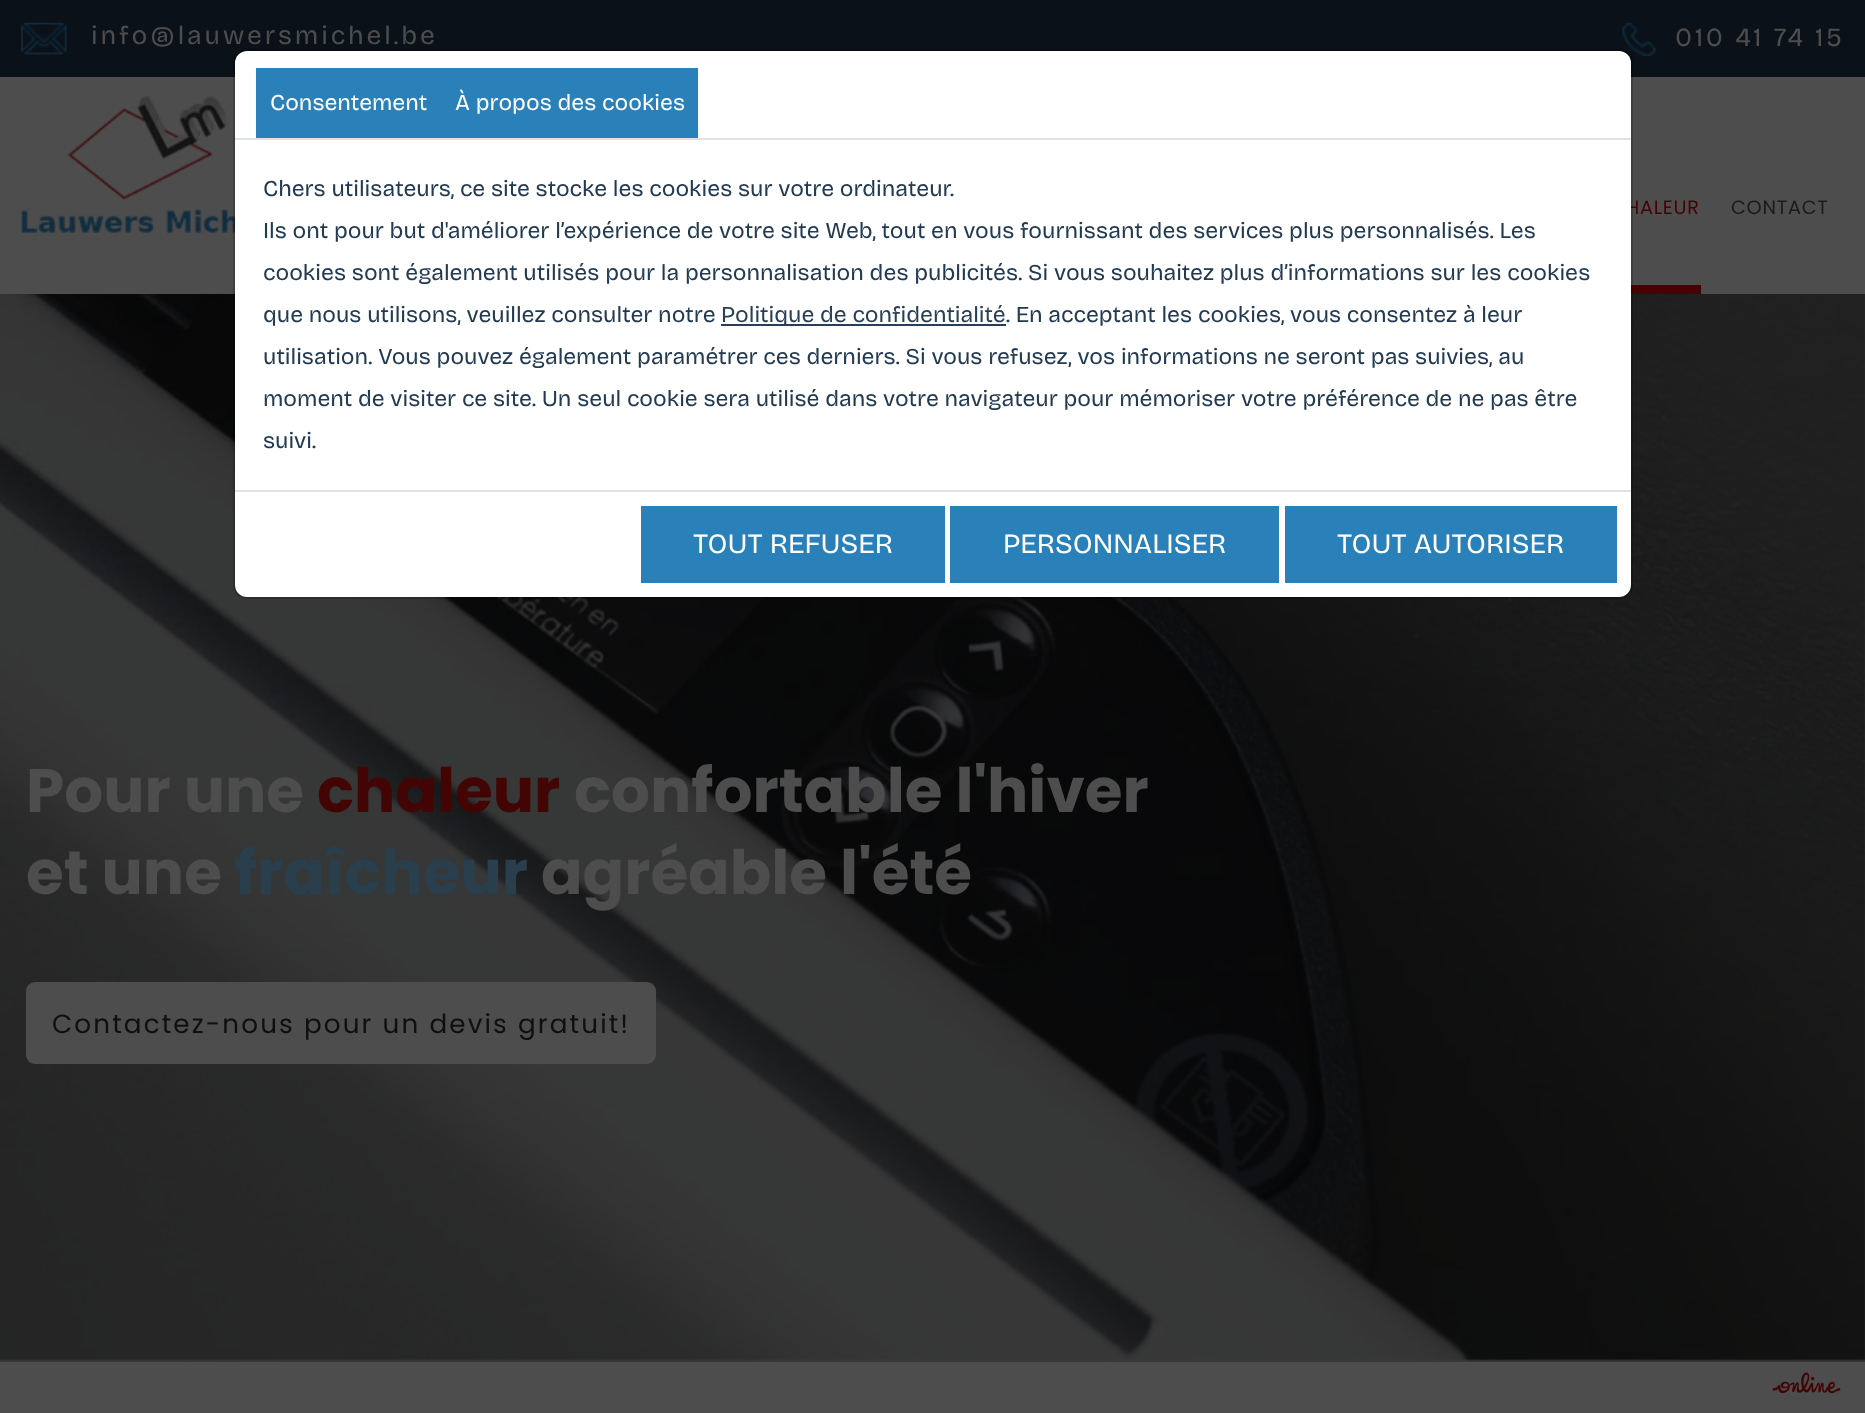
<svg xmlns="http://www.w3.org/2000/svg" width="1865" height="1413">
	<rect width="100%" height="100%" fill="#4D4D4D" />
	<rect x="0" y="294" width="1865" height="1068" fill="#3A3A3B" />
	<rect x="0" y="0" width="1865" height="77" fill="#0A1119" />
	<image x="21" y="22" width="46" height="33" href="assets/img1.png" />
	<text x="91" y="44" font-family="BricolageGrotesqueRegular" font-size="26.25" letter-spacing="2.9" fill="#4D4D4D">info@lauwersmichel.be</text>
	<image x="1622" y="22" width="34" height="34" href="assets/img2.png" />
	<text x="1675" y="46" font-family="BricolageGrotesqueRegular" font-size="26.25" letter-spacing="2.9" fill="#4D4D4D">010 41 74 15</text>
	<text x="1626" y="214" font-family="Poppins" font-size="19.25" letter-spacing="0.75" fill="#430404">HALEUR</text>
	<image x="0" y="294" width="1865" height="1068" href="assets/img4.png" />
	<rect x="235" y="51" width="1396" height="546" rx="12" fill="#FFFFFF" />
	<image x="21" y="96" width="214" height="137" href="assets/img3.png" />
	<rect x="1631" y="285" width="70" height="9" fill="#430404" />
	<rect x="234" y="50" width="1398" height="548" rx="13" fill="none" stroke="#000000" stroke-opacity="0.18" stroke-width="2" />
	<rect x="235" y="138" width="1396" height="2" fill="#DEE2E6" />
	<rect x="256" y="68" width="442" height="70" fill="#2A80B9" />
	<g font-family="BricolageGrotesqueRegular" font-size="22.75" fill="#FFFFFF">
		<text x="270" y="110">Consentement</text>
		<text x="455" y="110">À propos des cookies</text>
	</g>
	<g font-family="BricolageGrotesqueRegular" font-size="22.75" fill="#223A52">
		<text x="263" y="196">Chers utilisateurs, ce site stocke les cookies sur votre ordinateur.</text>
		<text x="263" y="238">Ils ont pour but d'améliorer l’expérience de votre site Web, tout en vous fournissant des services plus personnalisés. Les</text>
		<text x="263" y="280">cookies sont également utilisés pour la personnalisation des publicités. Si vous souhaitez plus d’informations sur les cookies</text>
		<text x="263" y="322">que nous utilisons, veuillez consulter notre</text>
	</g>
	<rect x="721" y="324" width="285" height="2" fill="#283F55" />
	<text x="721" y="322" font-family="BricolageGrotesqueRegular" font-size="22.75" fill="#283F55">Politique de confidentialité</text>
	<g font-family="BricolageGrotesqueRegular" font-size="22.75" fill="#223A52">
		<text x="1006" y="322">. En acceptant les cookies, vous consentez à leur</text>
		<text x="263" y="364">utilisation. Vous pouvez également paramétrer ces derniers. Si vous refusez, vos informations ne seront pas suivies, au</text>
		<text x="263" y="406">moment de visiter ce site. Un seul cookie sera utilisé dans votre navigateur pour mémoriser votre préférence de ne pas être</text>
		<text x="263" y="448">suivi.</text>
	</g>
	<rect x="235" y="490" width="1396" height="2" fill="#DEE2E6" />
	<rect x="641" y="506" width="304" height="77" fill="#2A80B9" />
	<text x="693" y="553" font-family="BricolageGrotesqueRegular" font-size="28" fill="#FFFFFF">TOUT REFUSER</text>
	<rect x="950" y="506" width="329" height="77" fill="#2A80B9" />
	<text x="1003" y="553" font-family="BricolageGrotesqueRegular" font-size="28" fill="#FFFFFF">PERSONNALISER</text>
	<rect x="1285" y="506" width="332" height="77" fill="#2A80B9" />
	<text x="1337" y="553" font-family="BricolageGrotesqueRegular" font-size="28" fill="#FFFFFF">TOUT AUTORISER</text>
	<text x="1731" y="214" font-family="Poppins" font-size="19.25" letter-spacing="0.75" fill="#1B1B1B">CONTACT</text>
	<text x="26" y="812" font-family="Poppins" font-size="61.25" font-weight="700" fill="#4D4D4D">Pour une</text>
	<text x="317" y="812" font-family="Poppins" font-size="61.25" font-weight="700" fill="#430404">chaleur</text>
	<g font-family="Poppins" font-size="61.25" font-weight="700" fill="#4D4D4D">
		<text x="574" y="812">confortable l'hiver</text>
		<text x="26" y="894">et une</text>
	</g>
	<text x="235" y="894" font-family="Poppins" font-size="61.25" font-weight="700" fill="#2A3F4D">fraîcheur</text>
	<text x="541" y="894" font-family="Poppins" font-size="61.25" font-weight="700" fill="#4D4D4D">agréable l'été</text>
	<rect x="26" y="982" width="630" height="82" rx="9" fill="#4D4D4D" />
	<text x="52" y="1033" font-family="Poppins" font-size="26.25" letter-spacing="2.1" fill="#0E0F10">Contactez-nous pour un devis gratuit!</text>
	<image x="1772" y="1372" width="69" height="22" href="assets/img5.png" />
</svg>
